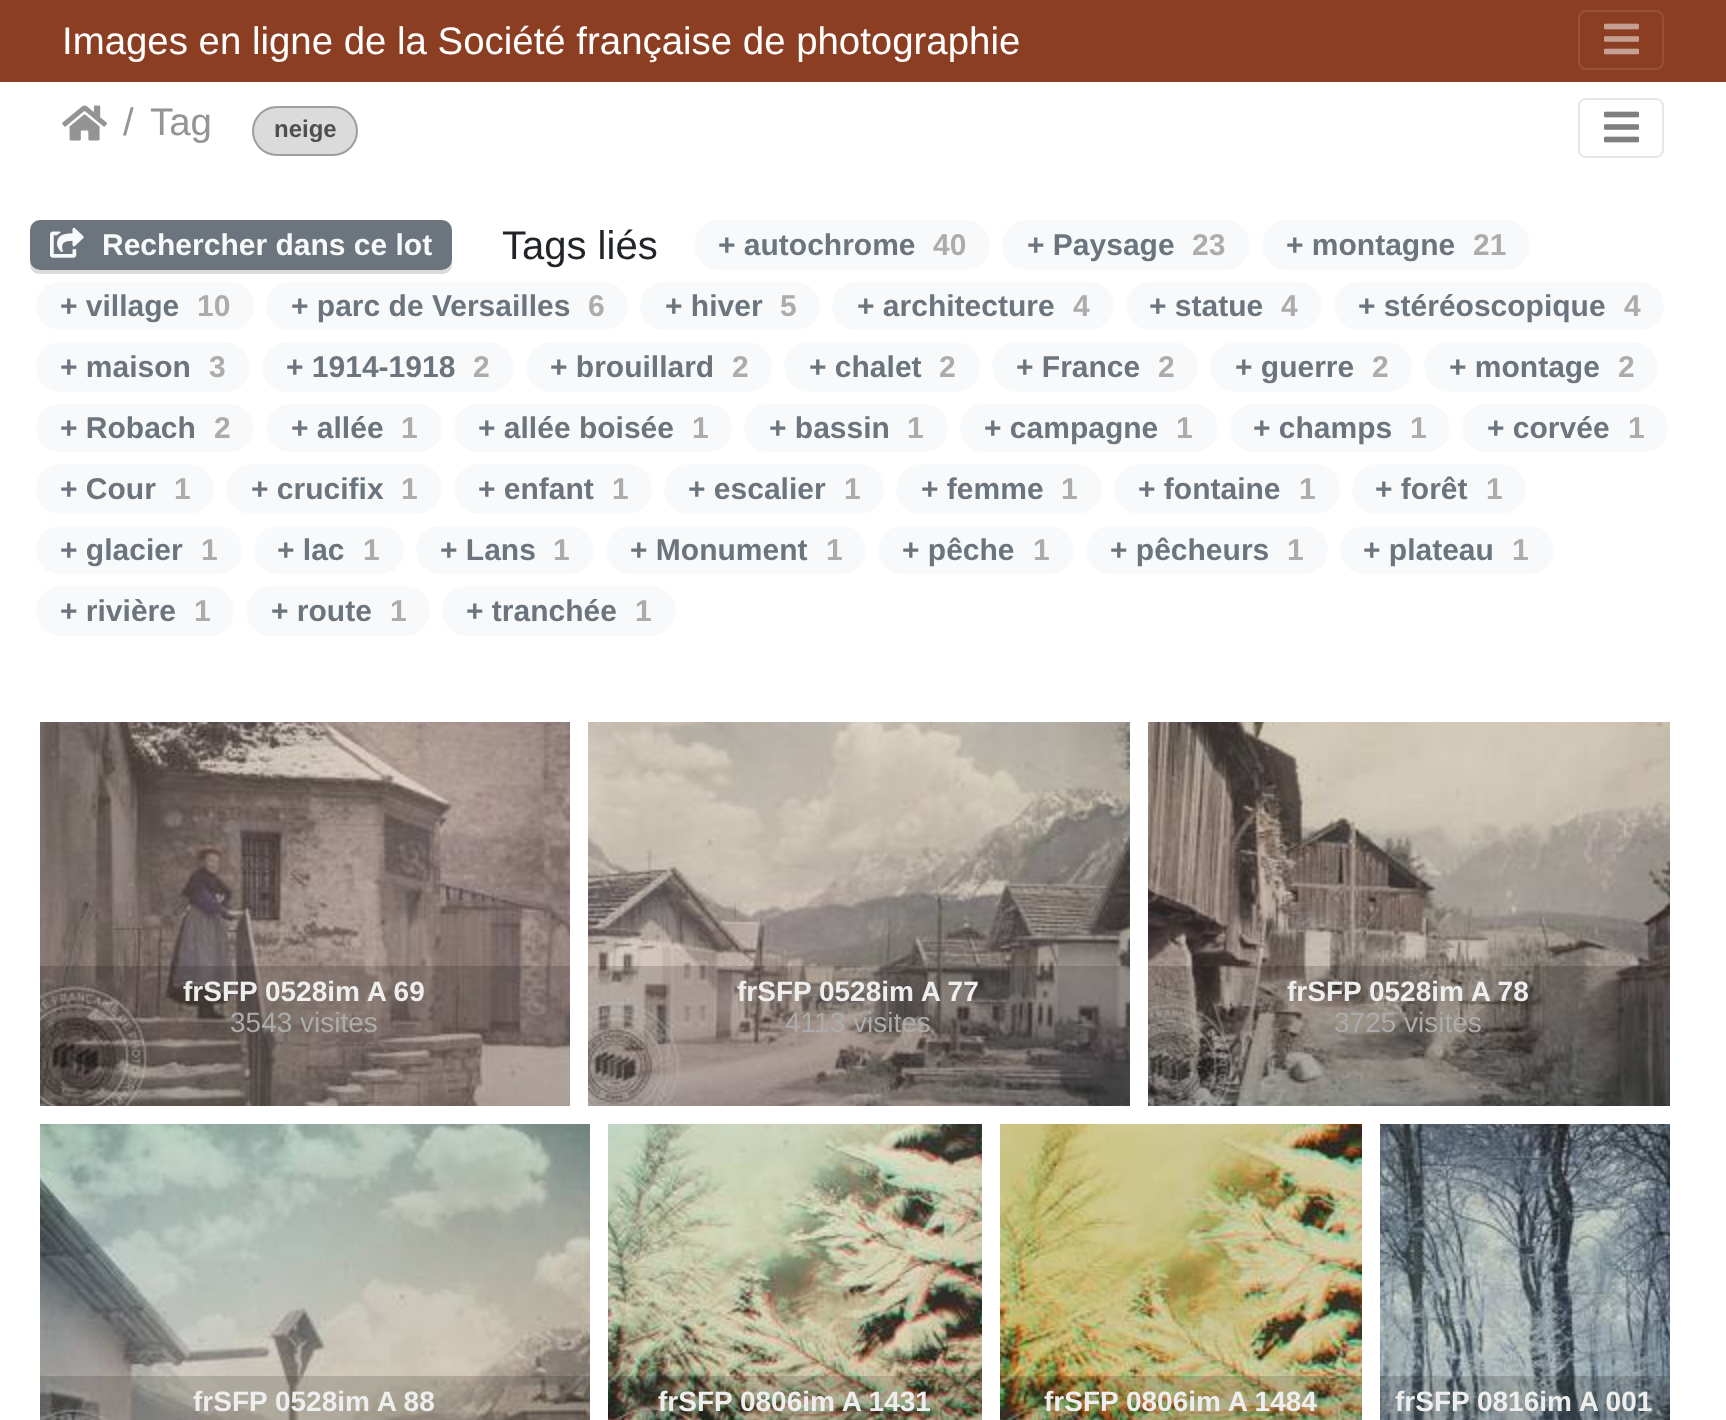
<svg xmlns="http://www.w3.org/2000/svg" width="1726" height="1420">
	<rect width="100%" height="100%" fill="#FFFFFF" />
	<rect x="0" y="0" width="1726" height="82" fill="#8B3E22" />
	<text x="62" y="54" font-family="Liberation Sans" font-size="38.4" fill="#FFFFFF">Images en ligne de la Société française de photographie</text>
	<rect x="1579" y="11" width="84" height="58" rx="7" fill="none" stroke="#975138" stroke-width="2" />
	<image x="1604" y="23" width="35" height="32" href="assets/img1.png" />
	<image x="62" y="105" width="45" height="36" href="assets/img2.png" />
	<g font-family="Liberation Sans" font-size="38.4" fill="#949494">
		<text x="123" y="135">/</text>
		<text x="150" y="135">Tag</text>
	</g>
	<rect x="253" y="107" width="104" height="48" rx="24" fill="#DBDBDB" stroke="#9E9E9E" stroke-width="2" />
	<text x="274" y="137" font-family="Liberation Sans" font-size="24" font-weight="700" fill="#4F4F4F">neige</text>
	<rect x="1579" y="99" width="84" height="58" rx="7" fill="none" stroke="#E6E6E6" stroke-width="2" />
	<image x="1604" y="111" width="35" height="32" href="assets/img3.png" />
	<path d="M30 260V264C30 270 34 274 40 274H442C448 274 452 270 452 264V260C452 266 448 270 442 270H40C34 270 30 266 30 260Z" fill="#DBDBDB" />
	<rect x="30" y="220" width="422" height="50" rx="10" fill="#6C757D" />
	<image x="50" y="227" width="34" height="31" href="assets/img4.png" />
	<text x="102" y="255" font-family="Liberation Sans" font-size="30" font-weight="700" fill="#F8F9FA">Rechercher dans ce lot</text>
	<text x="502" y="259" font-family="Liberation Sans" font-size="40" fill="#212529">Tags liés</text>
	<rect x="694" y="220" width="296" height="50" rx="25" fill="#F8F9FA" />
	<text x="718" y="255" font-family="Liberation Sans" font-size="30" font-weight="700" fill="#6C757D">+ autochrome</text>
	<text x="933" y="255" font-family="Liberation Sans" font-size="30" font-weight="700" fill="#ACACAC">40</text>
	<rect x="1002" y="220" width="248" height="50" rx="25" fill="#F8F9FA" />
	<text x="1027" y="255" font-family="Liberation Sans" font-size="30" font-weight="700" fill="#6C757D">+ Paysage</text>
	<text x="1192" y="255" font-family="Liberation Sans" font-size="30" font-weight="700" fill="#ACACAC">23</text>
	<rect x="1262" y="220" width="268" height="50" rx="25" fill="#F8F9FA" />
	<text x="1286" y="255" font-family="Liberation Sans" font-size="30" font-weight="700" fill="#6C757D">+ montagne</text>
	<text x="1473" y="255" font-family="Liberation Sans" font-size="30" font-weight="700" fill="#ACACAC">21</text>
	<rect x="36" y="282" width="218" height="48" rx="24" fill="#F8F9FA" />
	<text x="60" y="316" font-family="Liberation Sans" font-size="30" font-weight="700" fill="#6C757D">+ village</text>
	<text x="197" y="316" font-family="Liberation Sans" font-size="30" font-weight="700" fill="#ACACAC">10</text>
	<rect x="266" y="282" width="362" height="48" rx="24" fill="#F8F9FA" />
	<text x="291" y="316" font-family="Liberation Sans" font-size="30" font-weight="700" fill="#6C757D">+ parc de Versailles</text>
	<text x="588" y="316" font-family="Liberation Sans" font-size="30" font-weight="700" fill="#ACACAC">6</text>
	<rect x="640" y="282" width="180" height="48" rx="24" fill="#F8F9FA" />
	<text x="665" y="316" font-family="Liberation Sans" font-size="30" font-weight="700" fill="#6C757D">+ hiver</text>
	<text x="780" y="316" font-family="Liberation Sans" font-size="30" font-weight="700" fill="#ACACAC">5</text>
	<rect x="832" y="282" width="282" height="48" rx="24" fill="#F8F9FA" />
	<text x="857" y="316" font-family="Liberation Sans" font-size="30" font-weight="700" fill="#6C757D">+ architecture</text>
	<text x="1073" y="316" font-family="Liberation Sans" font-size="30" font-weight="700" fill="#ACACAC">4</text>
	<rect x="1126" y="282" width="196" height="48" rx="24" fill="#F8F9FA" />
	<text x="1149" y="316" font-family="Liberation Sans" font-size="30" font-weight="700" fill="#6C757D">+ statue</text>
	<text x="1281" y="316" font-family="Liberation Sans" font-size="30" font-weight="700" fill="#ACACAC">4</text>
	<rect x="1334" y="282" width="330" height="48" rx="24" fill="#F8F9FA" />
	<text x="1358" y="316" font-family="Liberation Sans" font-size="30" font-weight="700" fill="#6C757D">+ stéréoscopique</text>
	<text x="1624" y="316" font-family="Liberation Sans" font-size="30" font-weight="700" fill="#ACACAC">4</text>
	<rect x="36" y="342" width="214" height="50" rx="25" fill="#F8F9FA" />
	<text x="60" y="377" font-family="Liberation Sans" font-size="30" font-weight="700" fill="#6C757D">+ maison</text>
	<text x="209" y="377" font-family="Liberation Sans" font-size="30" font-weight="700" fill="#ACACAC">3</text>
	<rect x="262" y="342" width="252" height="50" rx="25" fill="#F8F9FA" />
	<text x="286" y="377" font-family="Liberation Sans" font-size="30" font-weight="700" fill="#6C757D">+ 1914-1918</text>
	<text x="473" y="377" font-family="Liberation Sans" font-size="30" font-weight="700" fill="#ACACAC">2</text>
	<rect x="526" y="342" width="246" height="50" rx="25" fill="#F8F9FA" />
	<text x="550" y="377" font-family="Liberation Sans" font-size="30" font-weight="700" fill="#6C757D">+ brouillard</text>
	<text x="732" y="377" font-family="Liberation Sans" font-size="30" font-weight="700" fill="#ACACAC">2</text>
	<rect x="784" y="342" width="196" height="50" rx="25" fill="#F8F9FA" />
	<text x="809" y="377" font-family="Liberation Sans" font-size="30" font-weight="700" fill="#6C757D">+ chalet</text>
	<text x="939" y="377" font-family="Liberation Sans" font-size="30" font-weight="700" fill="#ACACAC">2</text>
	<rect x="992" y="342" width="206" height="50" rx="25" fill="#F8F9FA" />
	<text x="1016" y="377" font-family="Liberation Sans" font-size="30" font-weight="700" fill="#6C757D">+ France</text>
	<text x="1158" y="377" font-family="Liberation Sans" font-size="30" font-weight="700" fill="#ACACAC">2</text>
	<rect x="1210" y="342" width="202" height="50" rx="25" fill="#F8F9FA" />
	<text x="1235" y="377" font-family="Liberation Sans" font-size="30" font-weight="700" fill="#6C757D">+ guerre</text>
	<text x="1372" y="377" font-family="Liberation Sans" font-size="30" font-weight="700" fill="#ACACAC">2</text>
	<rect x="1424" y="342" width="234" height="50" rx="25" fill="#F8F9FA" />
	<text x="1449" y="377" font-family="Liberation Sans" font-size="30" font-weight="700" fill="#6C757D">+ montage</text>
	<text x="1618" y="377" font-family="Liberation Sans" font-size="30" font-weight="700" fill="#ACACAC">2</text>
	<rect x="36" y="404" width="218" height="48" rx="24" fill="#F8F9FA" />
	<text x="60" y="438" font-family="Liberation Sans" font-size="30" font-weight="700" fill="#6C757D">+ Robach</text>
	<text x="214" y="438" font-family="Liberation Sans" font-size="30" font-weight="700" fill="#ACACAC">2</text>
	<rect x="266" y="404" width="176" height="48" rx="24" fill="#F8F9FA" />
	<text x="291" y="438" font-family="Liberation Sans" font-size="30" font-weight="700" fill="#6C757D">+ allée</text>
	<text x="401" y="438" font-family="Liberation Sans" font-size="30" font-weight="700" fill="#ACACAC">1</text>
	<rect x="454" y="404" width="278" height="48" rx="24" fill="#F8F9FA" />
	<text x="478" y="438" font-family="Liberation Sans" font-size="30" font-weight="700" fill="#6C757D">+ allée boisée</text>
	<text x="692" y="438" font-family="Liberation Sans" font-size="30" font-weight="700" fill="#ACACAC">1</text>
	<rect x="744" y="404" width="204" height="48" rx="24" fill="#F8F9FA" />
	<text x="769" y="438" font-family="Liberation Sans" font-size="30" font-weight="700" fill="#6C757D">+ bassin</text>
	<text x="907" y="438" font-family="Liberation Sans" font-size="30" font-weight="700" fill="#ACACAC">1</text>
	<rect x="960" y="404" width="258" height="48" rx="24" fill="#F8F9FA" />
	<text x="984" y="438" font-family="Liberation Sans" font-size="30" font-weight="700" fill="#6C757D">+ campagne</text>
	<text x="1176" y="438" font-family="Liberation Sans" font-size="30" font-weight="700" fill="#ACACAC">1</text>
	<rect x="1230" y="404" width="220" height="48" rx="24" fill="#F8F9FA" />
	<text x="1253" y="438" font-family="Liberation Sans" font-size="30" font-weight="700" fill="#6C757D">+ champs</text>
	<text x="1410" y="438" font-family="Liberation Sans" font-size="30" font-weight="700" fill="#ACACAC">1</text>
	<rect x="1462" y="404" width="206" height="48" rx="24" fill="#F8F9FA" />
	<text x="1487" y="438" font-family="Liberation Sans" font-size="30" font-weight="700" fill="#6C757D">+ corvée</text>
	<text x="1628" y="438" font-family="Liberation Sans" font-size="30" font-weight="700" fill="#ACACAC">1</text>
	<rect x="36" y="464" width="178" height="50" rx="25" fill="#F8F9FA" />
	<text x="60" y="499" font-family="Liberation Sans" font-size="30" font-weight="700" fill="#6C757D">+ Cour</text>
	<text x="174" y="499" font-family="Liberation Sans" font-size="30" font-weight="700" fill="#ACACAC">1</text>
	<rect x="226" y="464" width="216" height="50" rx="25" fill="#F8F9FA" />
	<text x="251" y="499" font-family="Liberation Sans" font-size="30" font-weight="700" fill="#6C757D">+ crucifix</text>
	<text x="401" y="499" font-family="Liberation Sans" font-size="30" font-weight="700" fill="#ACACAC">1</text>
	<rect x="454" y="464" width="198" height="50" rx="25" fill="#F8F9FA" />
	<text x="478" y="499" font-family="Liberation Sans" font-size="30" font-weight="700" fill="#6C757D">+ enfant</text>
	<text x="612" y="499" font-family="Liberation Sans" font-size="30" font-weight="700" fill="#ACACAC">1</text>
	<rect x="664" y="464" width="220" height="50" rx="25" fill="#F8F9FA" />
	<text x="688" y="499" font-family="Liberation Sans" font-size="30" font-weight="700" fill="#6C757D">+ escalier</text>
	<text x="844" y="499" font-family="Liberation Sans" font-size="30" font-weight="700" fill="#ACACAC">1</text>
	<rect x="896" y="464" width="206" height="50" rx="25" fill="#F8F9FA" />
	<text x="921" y="499" font-family="Liberation Sans" font-size="30" font-weight="700" fill="#6C757D">+ femme</text>
	<text x="1061" y="499" font-family="Liberation Sans" font-size="30" font-weight="700" fill="#ACACAC">1</text>
	<rect x="1114" y="464" width="226" height="50" rx="25" fill="#F8F9FA" />
	<text x="1138" y="499" font-family="Liberation Sans" font-size="30" font-weight="700" fill="#6C757D">+ fontaine</text>
	<text x="1299" y="499" font-family="Liberation Sans" font-size="30" font-weight="700" fill="#ACACAC">1</text>
	<rect x="1352" y="464" width="174" height="50" rx="25" fill="#F8F9FA" />
	<text x="1375" y="499" font-family="Liberation Sans" font-size="30" font-weight="700" fill="#6C757D">+ forêt</text>
	<text x="1486" y="499" font-family="Liberation Sans" font-size="30" font-weight="700" fill="#ACACAC">1</text>
	<rect x="36" y="526" width="206" height="48" rx="24" fill="#F8F9FA" />
	<text x="60" y="560" font-family="Liberation Sans" font-size="30" font-weight="700" fill="#6C757D">+ glacier</text>
	<text x="201" y="560" font-family="Liberation Sans" font-size="30" font-weight="700" fill="#ACACAC">1</text>
	<rect x="254" y="526" width="150" height="48" rx="24" fill="#F8F9FA" />
	<text x="277" y="560" font-family="Liberation Sans" font-size="30" font-weight="700" fill="#6C757D">+ lac</text>
	<text x="363" y="560" font-family="Liberation Sans" font-size="30" font-weight="700" fill="#ACACAC">1</text>
	<rect x="416" y="526" width="178" height="48" rx="24" fill="#F8F9FA" />
	<text x="440" y="560" font-family="Liberation Sans" font-size="30" font-weight="700" fill="#6C757D">+ Lans</text>
	<text x="553" y="560" font-family="Liberation Sans" font-size="30" font-weight="700" fill="#ACACAC">1</text>
	<rect x="606" y="526" width="260" height="48" rx="24" fill="#F8F9FA" />
	<text x="630" y="560" font-family="Liberation Sans" font-size="30" font-weight="700" fill="#6C757D">+ Monument</text>
	<text x="826" y="560" font-family="Liberation Sans" font-size="30" font-weight="700" fill="#ACACAC">1</text>
	<rect x="878" y="526" width="196" height="48" rx="24" fill="#F8F9FA" />
	<text x="902" y="560" font-family="Liberation Sans" font-size="30" font-weight="700" fill="#6C757D">+ pêche</text>
	<text x="1033" y="560" font-family="Liberation Sans" font-size="30" font-weight="700" fill="#ACACAC">1</text>
	<rect x="1086" y="526" width="242" height="48" rx="24" fill="#F8F9FA" />
	<text x="1110" y="560" font-family="Liberation Sans" font-size="30" font-weight="700" fill="#6C757D">+ pêcheurs</text>
	<text x="1287" y="560" font-family="Liberation Sans" font-size="30" font-weight="700" fill="#ACACAC">1</text>
	<rect x="1340" y="526" width="214" height="48" rx="24" fill="#F8F9FA" />
	<text x="1363" y="560" font-family="Liberation Sans" font-size="30" font-weight="700" fill="#6C757D">+ plateau</text>
	<text x="1512" y="560" font-family="Liberation Sans" font-size="30" font-weight="700" fill="#ACACAC">1</text>
	<rect x="36" y="586" width="198" height="50" rx="25" fill="#F8F9FA" />
	<text x="60" y="621" font-family="Liberation Sans" font-size="30" font-weight="700" fill="#6C757D">+ rivière</text>
	<text x="194" y="621" font-family="Liberation Sans" font-size="30" font-weight="700" fill="#ACACAC">1</text>
	<rect x="246" y="586" width="184" height="50" rx="25" fill="#F8F9FA" />
	<text x="271" y="621" font-family="Liberation Sans" font-size="30" font-weight="700" fill="#6C757D">+ route</text>
	<text x="390" y="621" font-family="Liberation Sans" font-size="30" font-weight="700" fill="#ACACAC">1</text>
	<rect x="442" y="586" width="234" height="50" rx="25" fill="#F8F9FA" />
	<text x="466" y="621" font-family="Liberation Sans" font-size="30" font-weight="700" fill="#6C757D">+ tranchée</text>
	<text x="635" y="621" font-family="Liberation Sans" font-size="30" font-weight="700" fill="#ACACAC">1</text>
	<image x="40" y="722" width="530" height="384" href="assets/img5.png" />
	<rect x="40" y="966" width="530" height="140" fill="#000000" fill-opacity="0.15" />
	<text x="183" y="1001" font-family="Liberation Sans" font-size="28" font-weight="700" fill="#EEEEEE">frSFP 0528im A 69</text>
	<text x="230" y="1032" font-family="Liberation Sans" font-size="28" fill="#ACACAC">3543 visites</text>
	<image x="588" y="722" width="542" height="384" href="assets/img6.png" />
	<rect x="588" y="966" width="542" height="140" fill="#000000" fill-opacity="0.15" />
	<text x="737" y="1001" font-family="Liberation Sans" font-size="28" font-weight="700" fill="#EEEEEE">frSFP 0528im A 77</text>
	<text x="785" y="1032" font-family="Liberation Sans" font-size="28" fill="#ACACAC">4113 visites</text>
	<image x="1148" y="722" width="522" height="384" href="assets/img7.png" />
	<rect x="1148" y="966" width="522" height="140" fill="#000000" fill-opacity="0.15" />
	<text x="1287" y="1001" font-family="Liberation Sans" font-size="28" font-weight="700" fill="#EEEEEE">frSFP 0528im A 78</text>
	<text x="1334" y="1032" font-family="Liberation Sans" font-size="28" fill="#ACACAC">3725 visites</text>
	<image x="40" y="1124" width="550" height="296" href="assets/img8.png" />
	<rect x="40" y="1376" width="550" height="44" fill="#000000" fill-opacity="0.15" />
	<text x="193" y="1411" font-family="Liberation Sans" font-size="28" font-weight="700" fill="#EEEEEE">frSFP 0528im A 88</text>
	<image x="608" y="1124" width="374" height="296" href="assets/img9.png" />
	<rect x="608" y="1376" width="374" height="44" fill="#000000" fill-opacity="0.15" />
	<text x="658" y="1411" font-family="Liberation Sans" font-size="28" font-weight="700" fill="#EEEEEE">frSFP 0806im A 1431</text>
	<image x="1000" y="1124" width="362" height="296" href="assets/img10.png" />
	<rect x="1000" y="1376" width="362" height="44" fill="#000000" fill-opacity="0.15" />
	<text x="1044" y="1411" font-family="Liberation Sans" font-size="28" font-weight="700" fill="#EEEEEE">frSFP 0806im A 1484</text>
	<image x="1380" y="1124" width="290" height="296" href="assets/img11.png" />
	<rect x="1380" y="1376" width="290" height="44" fill="#000000" fill-opacity="0.15" />
	<text x="1395" y="1411" font-family="Liberation Sans" font-size="28" font-weight="700" fill="#EEEEEE">frSFP 0816im A 001</text>
</svg>
